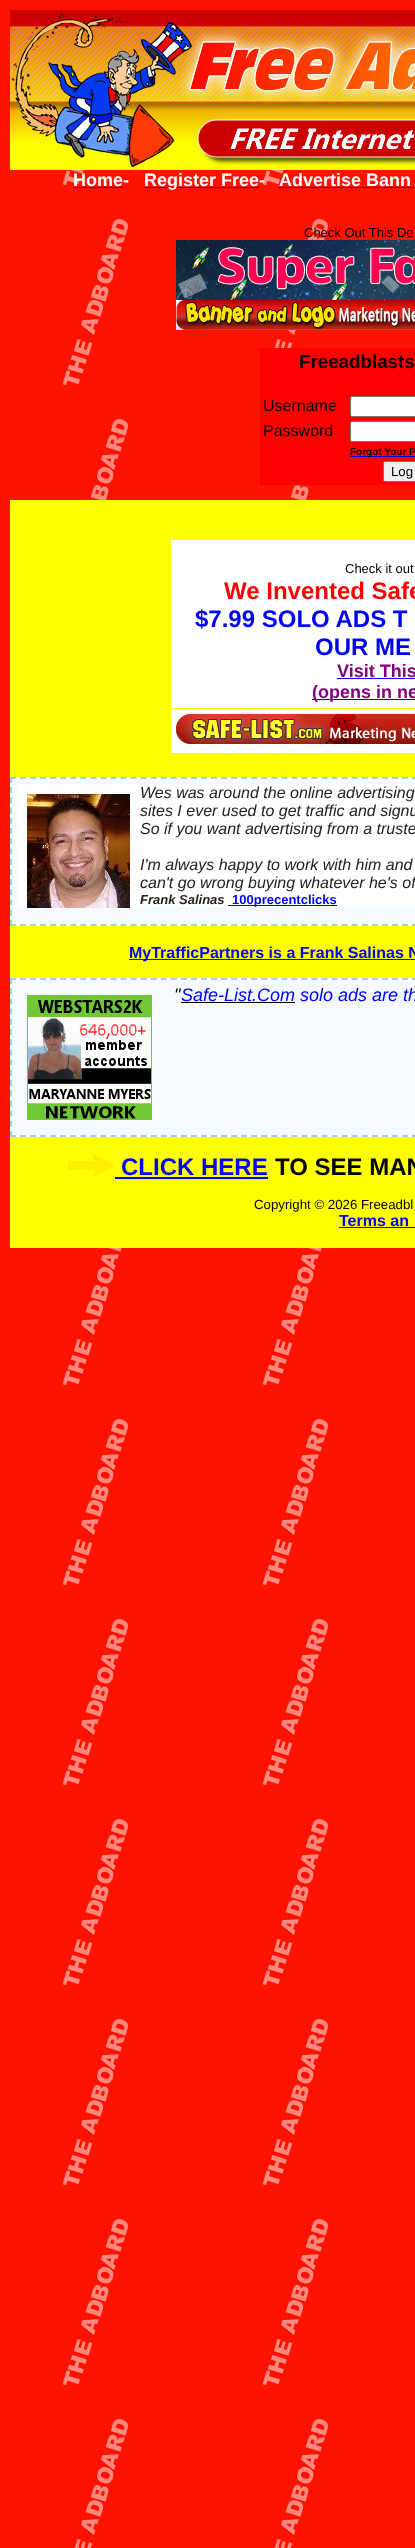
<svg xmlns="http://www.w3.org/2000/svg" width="415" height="2548">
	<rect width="100%" height="100%" fill="#FFFFFF" />
	<image x="0" y="0" width="415" height="2548" href="assets/img1.png" />
	<image x="10" y="10" width="405" height="160" href="assets/img2.png" />
	<text x="73" y="186" font-family="Liberation Sans" font-size="18" font-weight="700" fill="#FFFFFF">Home-</text>
	<rect x="73" y="187" width="50" height="1" fill="#0000EE" />
	<rect x="144" y="187" width="115" height="1" fill="#0000EE" />
	<g font-family="Liberation Sans" font-size="18" font-weight="700" fill="#FFFFFF">
		<text x="144" y="186">Register Free-</text>
		<text x="279" y="186">Advertise Bann</text>
	</g>
	<rect x="279" y="187" width="136" height="1" fill="#0000EE" />
	<text x="304" y="237" font-family="Liberation Sans" font-size="13" fill="#000000">Check Out This De</text>
	<image x="176" y="240" width="239" height="60" href="assets/img3.png" />
	<image x="176" y="300" width="239" height="30" href="assets/img4.png" />
	<rect x="260" y="348" width="155" height="137" fill="#FF0000" />
	<text x="299" y="368" font-family="Liberation Sans" font-size="18.75" font-weight="700" fill="#000000">Freeadblasts</text>
	<text x="263" y="411" font-family="Liberation Sans" font-size="16" fill="#000000">Username</text>
	<rect x="350.5" y="396.5" width="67" height="20" rx="1.5" fill="#FFFFFF" stroke="#767676" />
	<text x="263" y="436" font-family="Liberation Sans" font-size="16" fill="#000000">Password</text>
	<rect x="350.5" y="421.5" width="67" height="20" rx="1.5" fill="#FFFFFF" stroke="#767676" />
	<rect x="350" y="456" width="65" height="1" fill="#0000EE" />
	<text x="350" y="455" font-family="Liberation Sans" font-size="10" font-weight="700" fill="#000000">Forgot Your P</text>
	<rect x="383.5" y="461.5" width="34" height="20" rx="1.5" fill="#EFEFEF" stroke="#767676" />
	<text x="391" y="476" font-family="Liberation Sans" font-size="13.25" fill="#000000">Log</text>
	<rect x="10" y="500" width="405" height="748" fill="#FFFF00" />
	<rect x="171" y="540" width="244" height="168" fill="#FFFFFF" />
	<text x="345" y="573" font-family="Liberation Sans" font-size="13" fill="#000000">Check it out</text>
	<text x="224" y="599" font-family="Liberation Sans" font-size="24" font-weight="700" fill="#FF0000">We Invented Safe</text>
	<g font-family="Liberation Sans" font-size="24" font-weight="700" fill="#0000FF">
		<text x="195" y="627">$7.99 SOLO ADS T</text>
		<text x="315" y="655">OUR ME</text>
	</g>
	<text x="337" y="677" font-family="Liberation Sans" font-size="18" font-weight="700" fill="#800080">Visit This</text>
	<rect x="337" y="678" width="78" height="1" fill="#0000EE" />
	<rect x="312" y="699" width="103" height="1" fill="#0000EE" />
	<text x="312" y="698" font-family="Liberation Sans" font-size="18" font-weight="700" fill="#800080">(opens in ne</text>
	<rect x="171" y="709" width="244" height="44" fill="#FFFFFF" />
	<image x="176" y="714" width="239" height="30" href="assets/img5.png" />
	<rect x="10" y="777" width="402" height="149" fill="#FFFFFF" />
	<path d="M10 778H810" fill="none" stroke="#A7CCEB" stroke-width="2" stroke-dasharray="6 4.05" />
	<path d="M10 925H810" fill="none" stroke="#A7CCEB" stroke-width="2" stroke-dasharray="6 4.05" />
	<path d="M11 777V926" fill="none" stroke="#A7CCEB" stroke-width="2" stroke-dasharray="6 4.21" />
	<rect x="12" y="779" width="403" height="145" fill="#F4FAFF" />
	<rect x="17" y="784" width="398" height="123" fill="#FFFFFF" />
	<image x="27" y="794" width="103" height="114" href="assets/img6.png" />
	<g font-family="Liberation Sans" font-size="16" font-style="italic" fill="#222222">
		<text x="140" y="798">Wes was around the online advertising</text>
		<text x="140" y="816">sites I ever used to get traffic and signu</text>
		<text x="140" y="834">So if you want advertising from a truste</text>
		<text x="140" y="870">I'm always happy to work with him and</text>
		<text x="140" y="888">can't go wrong buying whatever he's of</text>
	</g>
	<text x="140" y="904" font-family="Liberation Sans" font-size="13" font-weight="700" font-style="italic" fill="#222222">Frank Salinas</text>
	<rect x="228" y="905" width="109" height="1" fill="#0000EE" />
	<text x="232" y="904" font-family="Liberation Sans" font-size="13" font-weight="700" fill="#0000FF">100precentclicks</text>
	<rect x="129" y="959" width="286" height="1" fill="#0000EE" />
	<text x="129" y="958" font-family="Liberation Sans" font-size="16" font-weight="700" fill="#0000FF">MyTrafficPartners is a Frank Salinas N</text>
	<rect x="10" y="978" width="402" height="159" fill="#FFFFFF" />
	<path d="M10 979H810" fill="none" stroke="#A7CCEB" stroke-width="2" stroke-dasharray="6 4.05" />
	<path d="M10 1136H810" fill="none" stroke="#A7CCEB" stroke-width="2" stroke-dasharray="6 4.05" />
	<path d="M11 978V1137" fill="none" stroke="#A7CCEB" stroke-width="2" stroke-dasharray="6 4.2" />
	<rect x="12" y="980" width="403" height="155" fill="#F4FAFF" />
	<text x="174" y="1001" font-family="Liberation Sans" font-size="18" font-style="italic" fill="#000000">"</text>
	<text x="181" y="1001" font-family="Liberation Sans" font-size="18" font-style="italic" fill="#0000FF">Safe-List.Com solo ads are th</text>
	<rect x="181" y="1002" width="114" height="1" fill="#000000" />
	<image x="27" y="995" width="125" height="125" href="assets/img7.png" />
	<image x="68" y="1153" width="47" height="25" href="assets/img8.png" />
	<text x="121" y="1175" font-family="Liberation Sans" font-size="24" font-weight="700" fill="#0000FF">CLICK HERE</text>
	<rect x="115" y="1177" width="153" height="2" fill="#0000EE" />
	<text x="275" y="1175" font-family="Liberation Sans" font-size="24" font-weight="700" fill="#000000">TO SEE MAN</text>
	<text x="254" y="1209" font-family="Liberation Sans" font-size="13.25" fill="#000000">Copyright © 2026 Freeadbl</text>
	<text x="339" y="1226" font-family="Liberation Sans" font-size="16" font-weight="700" fill="#0000FF">Terms an</text>
	<rect x="339" y="1227" width="76" height="1" fill="#0000EE" />
</svg>
